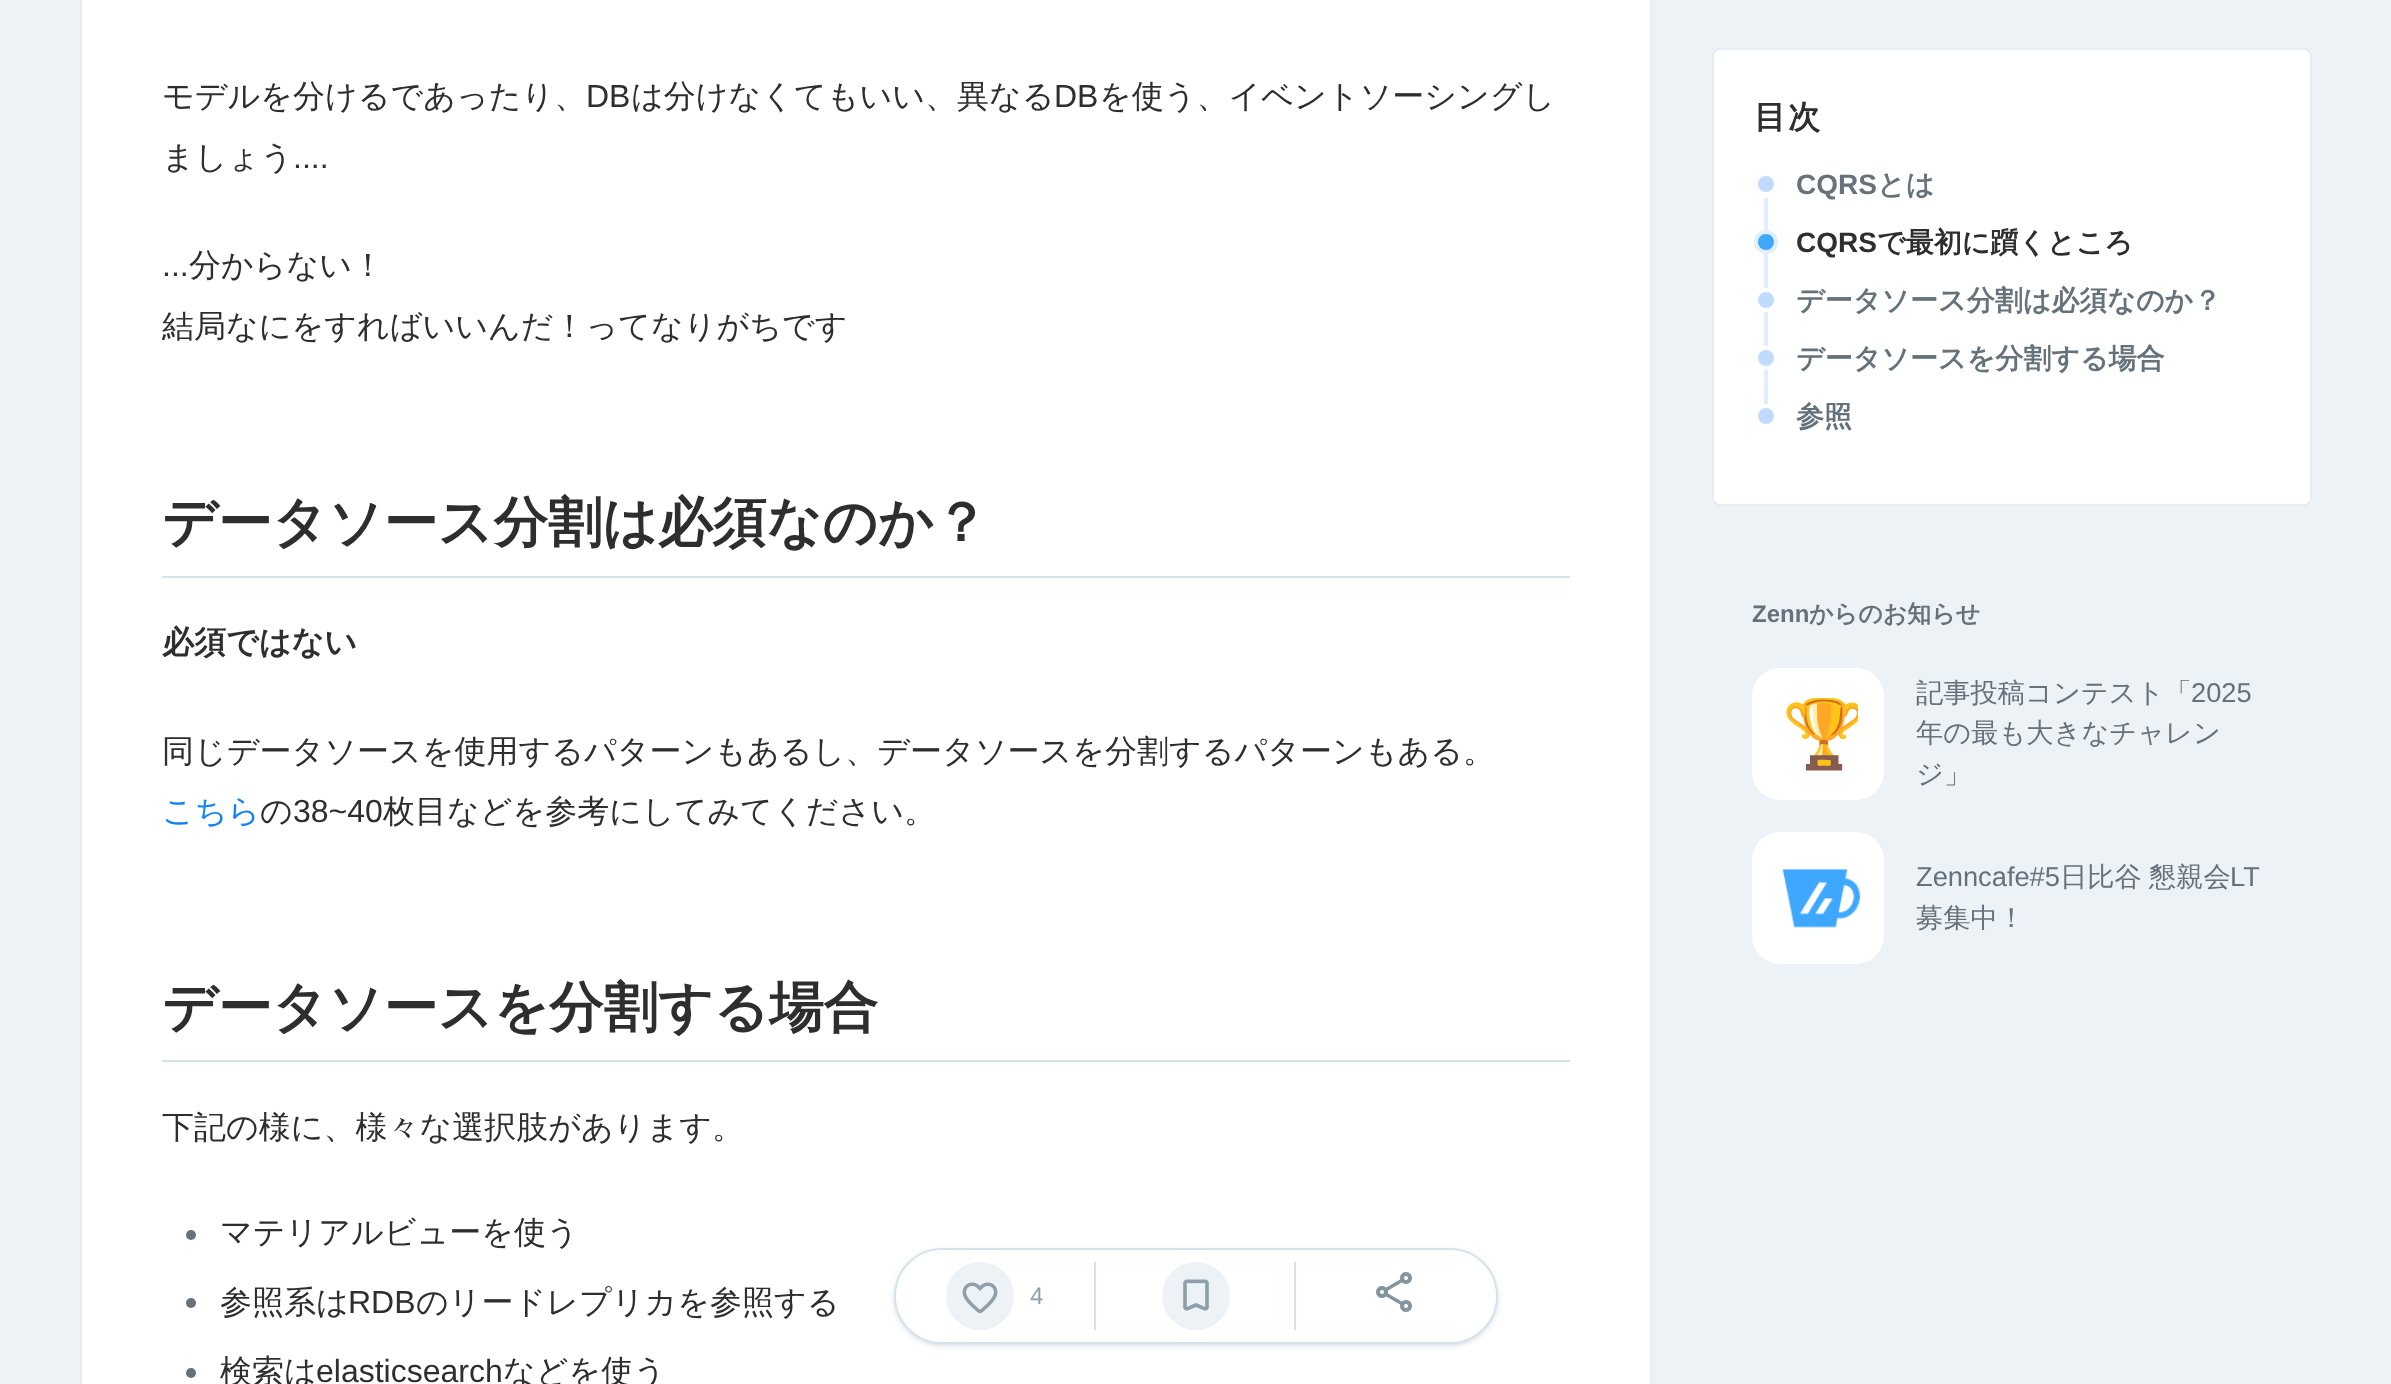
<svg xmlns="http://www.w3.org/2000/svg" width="2391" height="1384">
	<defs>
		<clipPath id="clip1"><rect x="1782" y="698" width="76" height="74" /></clipPath>
	</defs>
	<rect width="100%" height="100%" fill="#EDF2F7" />
	<rect x="81" y="-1" width="1570" height="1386" fill="#FFFFFF" stroke="#E4EDF4" stroke-width="2" />
	<text x="162" y="107" font-family="WenQuanYi Zen Hei" font-size="32" font-weight="500" fill="#2E2E2E">モデルを分けるであったり、</text>
	<text x="586" y="107" font-family="Liberation Sans" font-size="32" fill="#2E2E2E">DB</text>
	<text x="631" y="107" font-family="WenQuanYi Zen Hei" font-size="32" font-weight="500" fill="#2E2E2E">は分けなくてもいい、異なる</text>
	<text x="1054" y="107" font-family="Liberation Sans" font-size="32" fill="#2E2E2E">DB</text>
	<g font-family="WenQuanYi Zen Hei" font-size="32" font-weight="500" fill="#2E2E2E">
		<text x="1099" y="107">を使う、イベントソーシングし</text>
		<text x="162" y="168">ましょう</text>
	</g>
	<g font-family="Liberation Sans" font-size="32" fill="#2E2E2E">
		<text x="293" y="168">....</text>
		<text x="162" y="276">...</text>
	</g>
	<g font-family="WenQuanYi Zen Hei" font-size="32" font-weight="500" fill="#2E2E2E">
		<text x="189" y="276">分からない！</text>
		<text x="162" y="337">結局なにをすればいいんだ！ってなりがちです</text>
	</g>
	<rect x="162" y="576" width="1408" height="2" fill="#D6E3ED" />
	<text x="162" y="541" font-family="WenQuanYi Zen Hei" font-size="54.4" font-weight="700" fill="#2E2E2E">データソース分割は必須なのか？</text>
	<text x="162" y="653" font-family="WenQuanYi Zen Hei" font-size="32" font-weight="700" fill="#2E2E2E">必須ではない</text>
	<text x="162" y="762" font-family="WenQuanYi Zen Hei" font-size="32" font-weight="500" fill="#2E2E2E">同じデータソースを使用するパターンもあるし、データソースを分割するパターンもある。</text>
	<text x="162" y="822" font-family="WenQuanYi Zen Hei" font-size="32" font-weight="500" fill="#0F83FD">こちら</text>
	<text x="260" y="822" font-family="WenQuanYi Zen Hei" font-size="32" font-weight="500" fill="#2E2E2E">の</text>
	<text x="293" y="822" font-family="Liberation Sans" font-size="32" fill="#2E2E2E">38~40</text>
	<text x="383" y="822" font-family="WenQuanYi Zen Hei" font-size="32" font-weight="500" fill="#2E2E2E">枚目などを参考にしてみてください。</text>
	<rect x="162" y="1060" width="1408" height="2" fill="#D6E3ED" />
	<text x="162" y="1026" font-family="WenQuanYi Zen Hei" font-size="54.4" font-weight="700" fill="#2E2E2E">データソースを分割する場合</text>
	<text x="162" y="1138" font-family="WenQuanYi Zen Hei" font-size="32" font-weight="500" fill="#2E2E2E">下記の様に、様々な選択肢があります。</text>
	<circle cx="191" cy="1235" r="5" fill="#65717B" />
	<text x="220" y="1243" font-family="WenQuanYi Zen Hei" font-size="32" font-weight="500" fill="#2E2E2E">マテリアルビューを使う</text>
	<circle cx="191" cy="1303" r="5" fill="#65717B" />
	<text x="220" y="1313" font-family="WenQuanYi Zen Hei" font-size="32" font-weight="500" fill="#2E2E2E">参照系は</text>
	<text x="348" y="1313" font-family="Liberation Sans" font-size="32" fill="#2E2E2E">RDB</text>
	<text x="416" y="1313" font-family="WenQuanYi Zen Hei" font-size="32" font-weight="500" fill="#2E2E2E">のリードレプリカを参照する</text>
	<circle cx="191" cy="1373" r="5" fill="#65717B" />
	<text x="220" y="1382" font-family="WenQuanYi Zen Hei" font-size="32" font-weight="500" fill="#2E2E2E">検索は</text>
	<text x="316" y="1382" font-family="Liberation Sans" font-size="32" fill="#2E2E2E">elasticsearch</text>
	<text x="503" y="1382" font-family="WenQuanYi Zen Hei" font-size="32" font-weight="500" fill="#2E2E2E">などを使う</text>
	<rect x="1713" y="49" width="598" height="456" rx="7" fill="#FFFFFF" stroke="#E4EDF4" stroke-width="2" />
	<text x="1754" y="128" font-family="WenQuanYi Zen Hei" font-size="32" font-weight="700" letter-spacing="2" fill="#2E2E2E">目次</text>
	<circle cx="1766" cy="184" r="10" fill="#BFDCFF" stroke="#FFFFFF" stroke-width="4" />
	<text x="1796" y="194" font-family="Liberation Sans" font-size="28" font-weight="700" fill="#65717B">CQRS</text>
	<text x="1877" y="194" font-family="WenQuanYi Zen Hei" font-size="28" font-weight="700" fill="#65717B">とは</text>
	<rect x="1764" y="198" width="4" height="207" fill="#E0EFFF" />
	<circle cx="1766" cy="242" r="10" fill="#3EA8FF" stroke="#E0EFFF" stroke-width="4" />
	<text x="1796" y="252" font-family="Liberation Sans" font-size="28" font-weight="700" fill="#2E2E2E">CQRS</text>
	<text x="1877" y="252" font-family="WenQuanYi Zen Hei" font-size="28" font-weight="700" fill="#2E2E2E">で最初に躓くところ</text>
	<circle cx="1766" cy="300" r="10" fill="#BFDCFF" stroke="#FFFFFF" stroke-width="4" />
	<text x="1796" y="310" font-family="WenQuanYi Zen Hei" font-size="28" font-weight="700" fill="#65717B">データソース分割は必須なのか？</text>
	<circle cx="1766" cy="358" r="10" fill="#BFDCFF" stroke="#FFFFFF" stroke-width="4" />
	<text x="1796" y="368" font-family="WenQuanYi Zen Hei" font-size="28" font-weight="700" fill="#65717B">データソースを分割する場合</text>
	<circle cx="1766" cy="416" r="10" fill="#BFDCFF" stroke="#FFFFFF" stroke-width="4" />
	<text x="1796" y="426" font-family="WenQuanYi Zen Hei" font-size="28" font-weight="700" fill="#65717B">参照</text>
	<text x="1752" y="622" font-family="Liberation Sans" font-size="24" font-weight="700" fill="#65717B">Zenn</text>
	<text x="1809" y="622" font-family="WenQuanYi Zen Hei" font-size="24" font-weight="700" fill="#65717B">からのお知らせ</text>
	<rect x="1752" y="668" width="132" height="132" rx="28" fill="#FFFFFF" />
	<g clip-path="url(#clip1)">
		<text x="1782" y="757" font-family="Noto Color Emoji" font-size="68" letter-spacing="7" fill="#000000">🏆️</text>
	</g>
	<text x="1916" y="702" font-family="WenQuanYi Zen Hei" font-size="27.25" font-weight="500" fill="#65717B">記事投稿コンテスト「</text>
	<text x="2191" y="702" font-family="Liberation Sans" font-size="27.25" fill="#65717B">2025</text>
	<g font-family="WenQuanYi Zen Hei" font-size="27.25" font-weight="500" fill="#65717B">
		<text x="1916" y="742">年の最も大きなチャレン</text>
		<text x="1916" y="783">ジ」</text>
	</g>
	<image x="1752" y="832" width="132" height="132" href="assets/img1.png" />
	<text x="1916" y="886" font-family="Liberation Sans" font-size="27.25" fill="#65717B">Zenncafe#5</text>
	<text x="2060" y="886" word-spacing="-1" font-family="WenQuanYi Zen Hei" font-size="27.25" font-weight="500" fill="#65717B">日比谷 懇親会</text>
	<text x="2230" y="886" font-family="Liberation Sans" font-size="27.25" fill="#65717B">LT</text>
	<text x="1916" y="927" font-family="WenQuanYi Zen Hei" font-size="27.25" font-weight="500" fill="#65717B">募集中！</text>
	<rect x="896" y="1252" width="600" height="92" rx="46" fill="#001B44" fill-opacity="0.25" filter="blur(3px)" />
	<rect x="895" y="1249" width="602" height="94" rx="47" fill="#FFFFFF" stroke="#D6E3ED" stroke-width="2" />
	<rect x="1094" y="1262" width="2" height="68" fill="#D6E3ED" />
	<circle cx="980" cy="1296" r="34" fill="#EDF2F7" />
	<image x="962" y="1282" width="36" height="32" href="assets/img2.png" />
	<text x="1030" y="1304" font-family="Liberation Sans" font-size="24" fill="#8F9FAA">4</text>
	<rect x="1294" y="1262" width="2" height="68" fill="#D6E3ED" />
	<circle cx="1196" cy="1296" r="34" fill="#EDF2F7" />
	<image x="1183" y="1279" width="26" height="32" href="assets/img3.png" />
	<image x="1376" y="1272" width="36" height="40" href="assets/img4.png" />
</svg>
